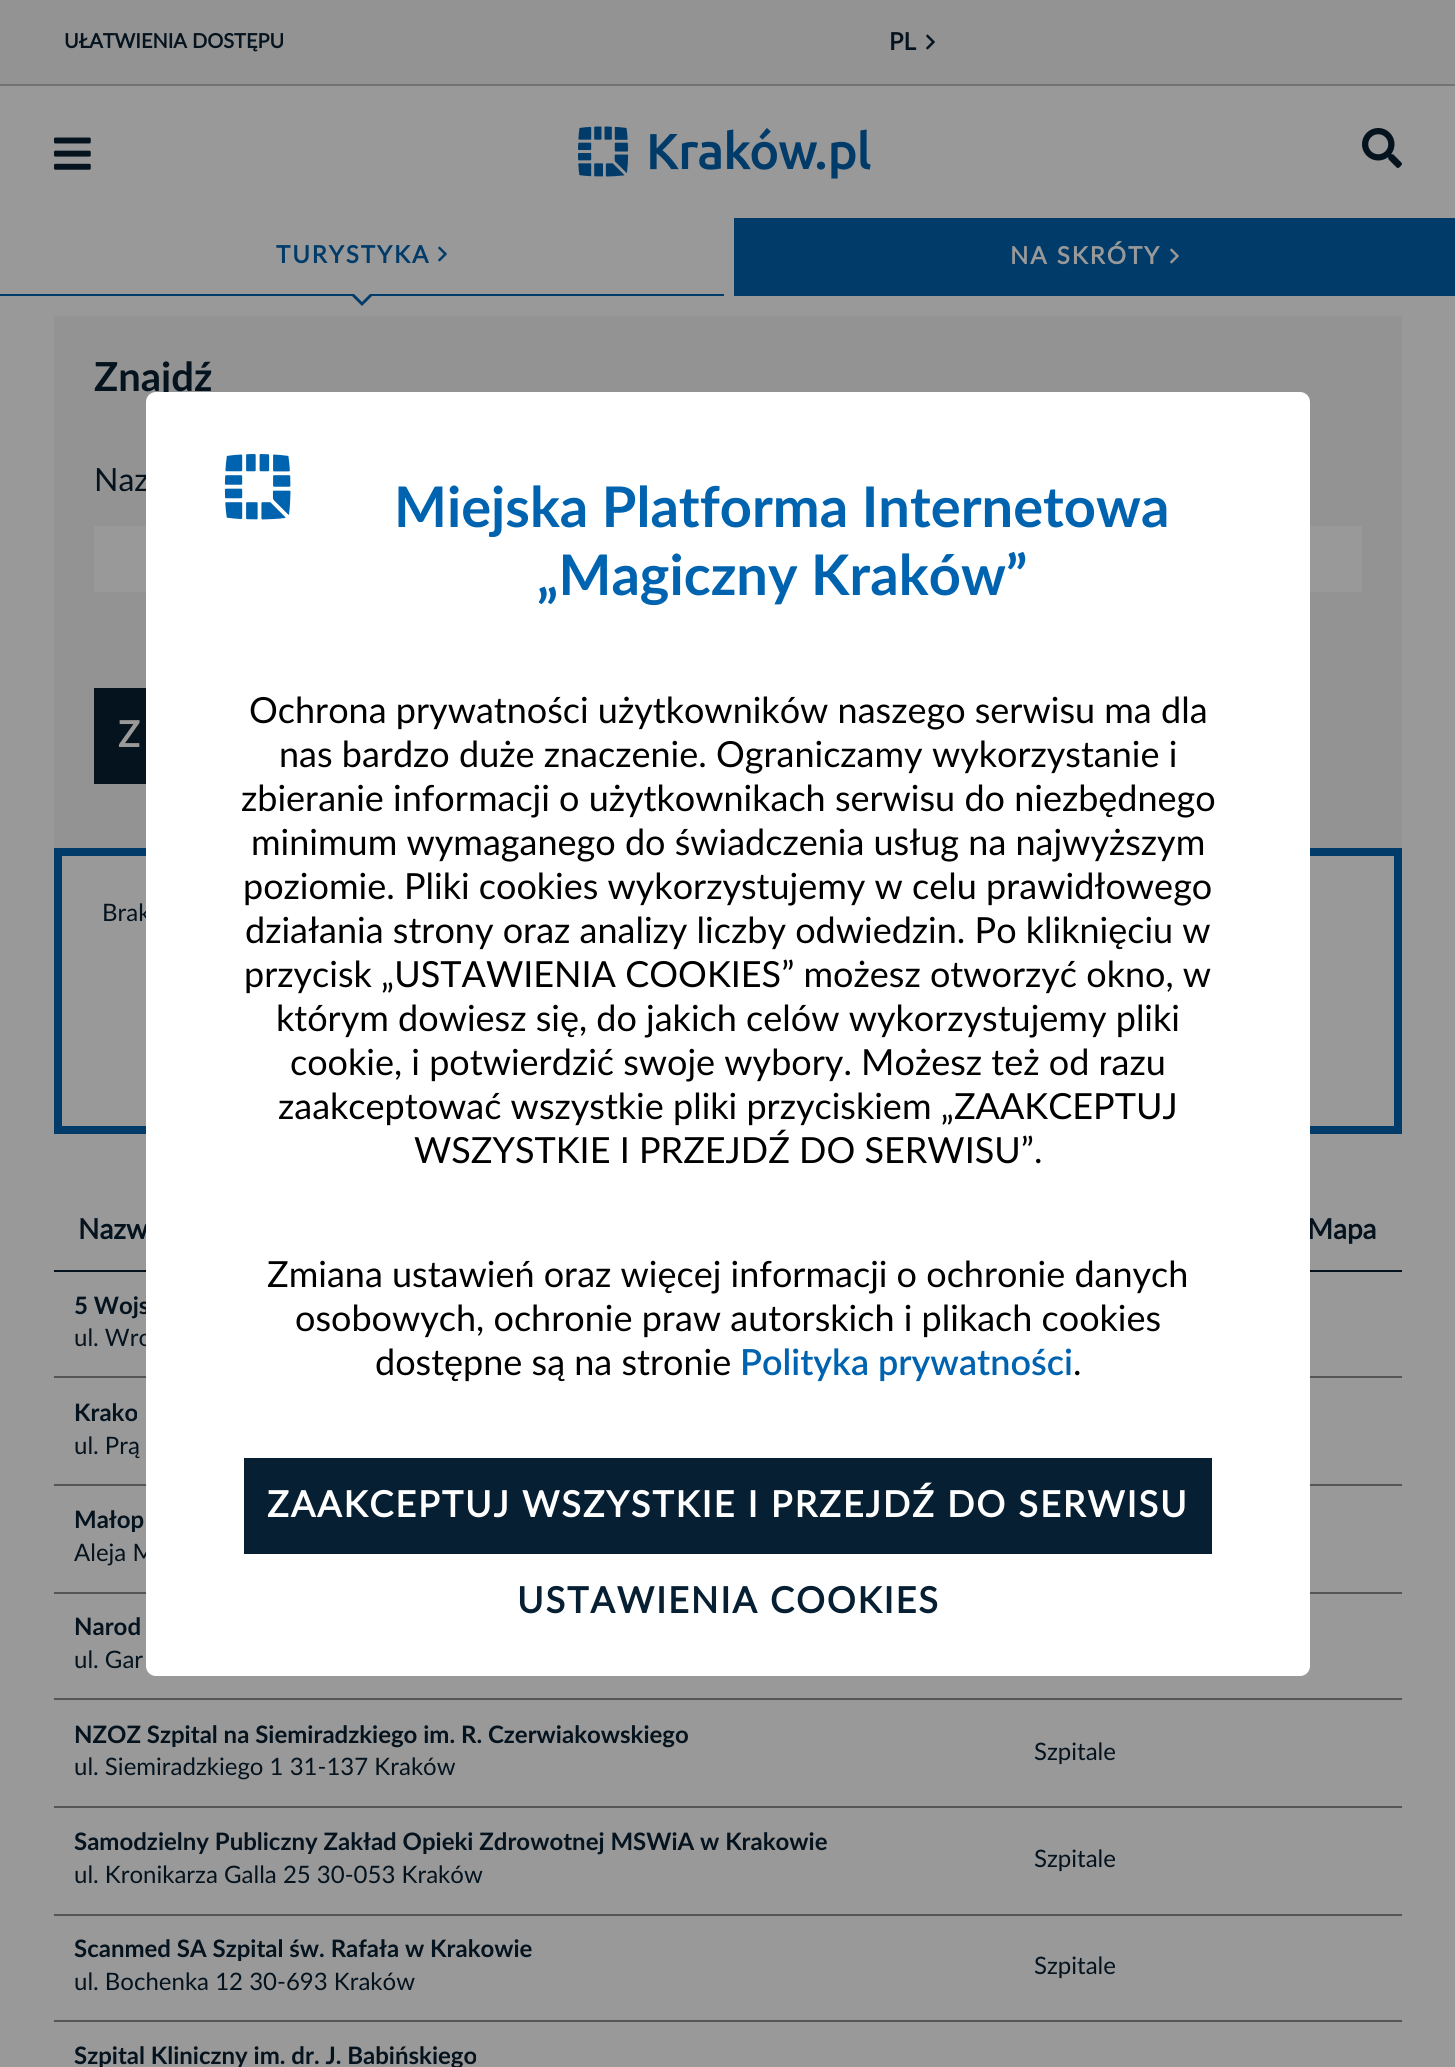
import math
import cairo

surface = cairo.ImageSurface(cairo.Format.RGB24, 1455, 2067)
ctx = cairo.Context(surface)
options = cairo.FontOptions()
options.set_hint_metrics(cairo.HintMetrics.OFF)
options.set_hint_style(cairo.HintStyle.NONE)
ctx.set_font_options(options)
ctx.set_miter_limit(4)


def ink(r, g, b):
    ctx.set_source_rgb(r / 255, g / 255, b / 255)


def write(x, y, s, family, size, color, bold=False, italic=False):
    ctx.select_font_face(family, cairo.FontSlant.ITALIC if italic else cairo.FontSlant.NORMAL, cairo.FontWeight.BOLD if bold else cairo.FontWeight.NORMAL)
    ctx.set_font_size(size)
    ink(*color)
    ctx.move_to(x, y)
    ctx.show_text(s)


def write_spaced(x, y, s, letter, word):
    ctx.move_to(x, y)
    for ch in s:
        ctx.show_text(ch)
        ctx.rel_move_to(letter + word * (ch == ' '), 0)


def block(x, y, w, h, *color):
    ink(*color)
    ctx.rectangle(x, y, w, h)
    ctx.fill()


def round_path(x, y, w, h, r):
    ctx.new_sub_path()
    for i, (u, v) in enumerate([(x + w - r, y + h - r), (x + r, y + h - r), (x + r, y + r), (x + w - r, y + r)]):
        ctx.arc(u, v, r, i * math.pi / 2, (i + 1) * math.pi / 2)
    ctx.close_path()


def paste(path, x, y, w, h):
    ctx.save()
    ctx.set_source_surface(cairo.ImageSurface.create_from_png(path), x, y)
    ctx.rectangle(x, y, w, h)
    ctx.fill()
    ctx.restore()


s1 = dict(family="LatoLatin", size=20, color=(4, 19, 30), bold=True)
s2 = dict(family="LatoLatin", size=24, color=(4, 19, 30), bold=True)
s3 = dict(family="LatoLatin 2", size=40, color=(4, 19, 30), bold=True)
s4 = dict(family="LatoLatin", size=32, color=(4, 19, 30))
s5 = dict(family="LatoLatin", size=24, color=(4, 19, 30))
s6 = dict(family="LatoLatin", size=28, color=(4, 19, 30), bold=True)
s7 = dict(family="LatoLatin 2", size=24, color=(4, 19, 30), bold=True)
s8 = dict(family="LatoLatin 2", size=56, color=(0, 99, 175), bold=True)
s9 = dict(family="LatoLatin", size=36, color=(0, 0, 0))
s10 = dict(family="LatoLatin SemiBold", size=36, color=(0, 99, 175))

ink(153, 153, 153)
ctx.paint()
block(0, 0, 1455, 84, 147, 147, 147)
block(0, 84, 1455, 2, 115, 115, 115)
write(64, 48, "UŁATWIENIA DOSTĘPU", **s1)
write(889, 50, "PL", **s2)
paste("pic1.png", 926, 34, 9, 16)
paste("pic2.png", 54, 137, 37, 33)
paste("pic3.png", 578, 126, 293, 53)
paste("pic4.png", 1362, 128, 40, 40)
block(0, 294, 724, 2, 0, 59, 105)
write_spaced(276, 263, "TURYSTYKA", 2, 0)
paste("pic5.png", 438, 246, 9, 16)
ctx.new_path()
ctx.move_to(350, 294)
ctx.line_to(374, 294)
ctx.line_to(362, 306)
ctx.close_path()
ctx.fill()
ink(153, 153, 153)
ctx.new_path()
ctx.move_to(350, 290)
ctx.line_to(374, 290)
ctx.line_to(362, 302)
ctx.close_path()
ctx.fill()
block(734, 218, 721, 78, 0, 59, 105)
ink(153, 153, 153)
write_spaced(1010, 264, "NA SKRÓTY", 2, 0)
paste("pic6.png", 1170, 248, 9, 16)
block(54, 316, 1348, 532, 147, 147, 147)
write(94, 391, "Znajdź", **s3)
write(94, 491, "Naz", **s4)
block(94, 526, 1268, 66, 153, 153, 153)
block(94, 688, 52, 96, 4, 19, 30)
ctx.select_font_face("LatoLatin", cairo.FontSlant.NORMAL, cairo.FontWeight.BOLD)
ctx.set_font_size(36)
ink(153, 153, 153)
write_spaced(118, 747, "Z", 2, 0)
ctx.rectangle(58, 852, 1340, 278)
ink(0, 59, 105)
ctx.set_line_width(8)
ctx.stroke()
write(102, 921, "Brak", **s5)
block(54, 1270, 1348, 2, 4, 19, 30)
write(78, 1239, "Nazw", **s6)
write(1307, 1239, "Mapa", **s6)
block(54, 1376, 1348, 2, 86, 86, 86)
write(74, 1314, "5 Wojs", **s7)
write(74, 1346, "ul. Wro", **s5)
block(54, 1484, 1348, 2, 86, 86, 86)
write(74, 1421, "Krako", **s7)
write(74, 1454, "ul. Prą", **s5)
block(54, 1592, 1348, 2, 86, 86, 86)
write(74, 1528, "Małop", **s7)
write(74, 1561, "Aleja M", **s5)
block(54, 1698, 1348, 2, 86, 86, 86)
write(74, 1635, "Narod", **s7)
write(74, 1668, "ul. Gar", **s5)
block(54, 1806, 1348, 2, 86, 86, 86)
write(74, 1743, "NZOZ Szpital na Siemiradzkiego im. R. Czerwiakowskiego", **s7)
write(74, 1775, "ul. Siemiradzkiego 1 31-137 Kraków", **s5)
write(1034, 1760, "Szpitale", **s5)
block(54, 1914, 1348, 2, 86, 86, 86)
write(74, 1850, "Samodzielny Publiczny Zakład Opieki Zdrowotnej MSWiA w Krakowie", **s7)
write(74, 1883, "ul. Kronikarza Galla 25 30-053 Kraków", **s5)
write(1034, 1867, "Szpitale", **s5)
block(54, 2020, 1348, 2, 86, 86, 86)
write(74, 1957, "Scanmed SA Szpital św. Rafała w Krakowie", **s7)
write(74, 1990, "ul. Bochenka 12 30-693 Kraków", **s5)
write(1034, 1974, "Szpitale", **s5)
write(74, 2064, "Szpital Kliniczny im. dr. J. Babińskiego", **s7)
ink(255, 255, 255)
round_path(146, 392, 1164, 1284, 10)
ctx.fill()
paste("pic7.png", 224, 454, 67, 66)
write(394, 527, "Miejska Platforma Internetowa", **s8)
write(537, 595, "„Magiczny Kraków”", **s8)
write(249, 723, "Ochrona prywatności użytkowników naszego serwisu ma dla", **s9)
write(279, 767, "nas bardzo duże znaczenie. Ograniczamy wykorzystanie i", **s9)
write(241, 811, "zbieranie informacji o użytkownikach serwisu do niezbędnego", **s9)
write(251, 855, "minimum wymaganego do świadczenia usług na najwyższym", **s9)
write(243, 899, "poziomie. Pliki cookies wykorzystujemy w celu prawidłowego", **s9)
write(245, 943, "działania strony oraz analizy liczby odwiedzin. Po kliknięciu w", **s9)
write(244, 987, "przycisk „USTAWIENIA COOKIES” możesz otworzyć okno, w", **s9)
write(276, 1031, "którym dowiesz się, do jakich celów wykorzystujemy pliki", **s9)
write(290, 1075, "cookie, i potwierdzić swoje wybory. Możesz też od razu", **s9)
write(278, 1119, "zaakceptować wszystkie pliki przyciskiem „ZAAKCEPTUJ", **s9)
write(414, 1163, "WSZYSTKIE I PRZEJDŹ DO SERWISU”.", **s9)
write(267, 1287, "Zmiana ustawień oraz więcej informacji o ochronie danych", **s9)
write(295, 1331, "osobowych, ochronie praw autorskich i plikach cookies", **s9)
write(375, 1375, "dostępne są na stronie", **s9)
write(740, 1375, "Polityka prywatności", **s10)
write(1073, 1375, ".", **s9)
block(244, 1458, 968, 96, 7, 31, 50)
ctx.select_font_face("LatoLatin", cairo.FontSlant.NORMAL, cairo.FontWeight.BOLD)
ink(255, 255, 255)
write_spaced(267, 1517, "ZAAKCEPTUJ WSZYSTKIE I PRZEJDŹ DO SERWISU", 2, 0)
ink(7, 31, 50)
write_spaced(517, 1613, "USTAWIENIA COOKIES", 2, 0)
surface.write_to_png("screenshot.png")
